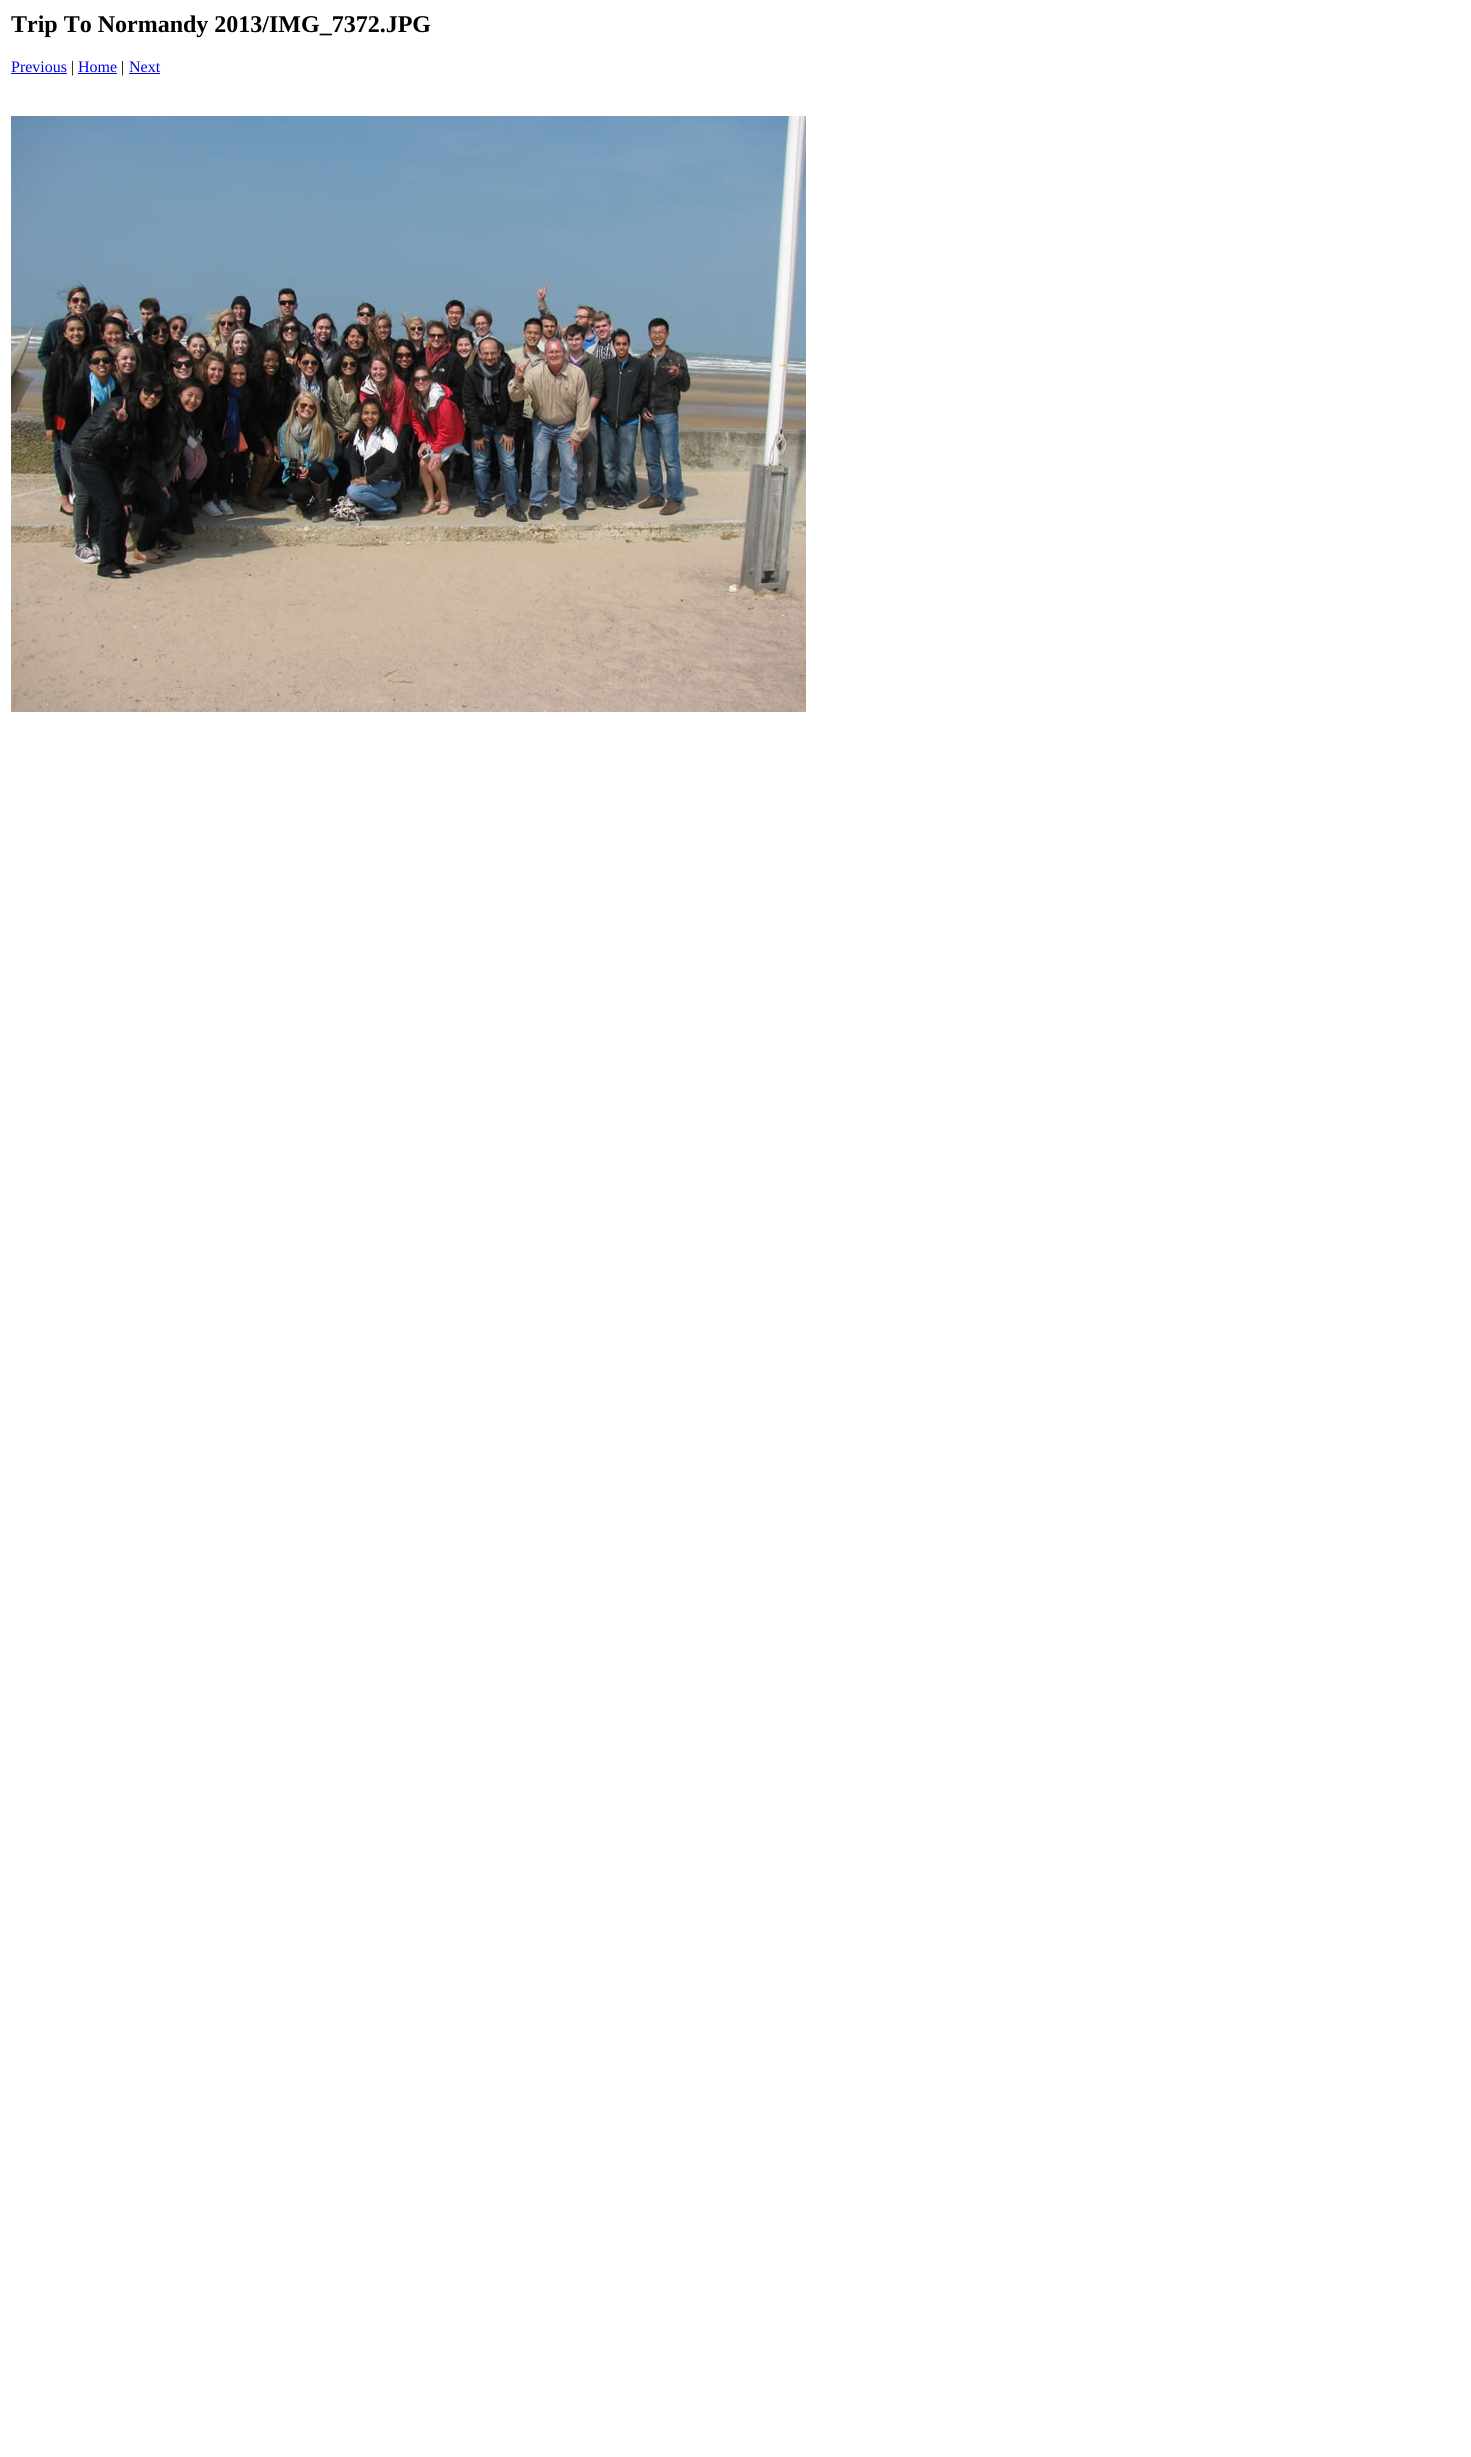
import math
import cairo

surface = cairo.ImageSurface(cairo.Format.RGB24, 1471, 2457)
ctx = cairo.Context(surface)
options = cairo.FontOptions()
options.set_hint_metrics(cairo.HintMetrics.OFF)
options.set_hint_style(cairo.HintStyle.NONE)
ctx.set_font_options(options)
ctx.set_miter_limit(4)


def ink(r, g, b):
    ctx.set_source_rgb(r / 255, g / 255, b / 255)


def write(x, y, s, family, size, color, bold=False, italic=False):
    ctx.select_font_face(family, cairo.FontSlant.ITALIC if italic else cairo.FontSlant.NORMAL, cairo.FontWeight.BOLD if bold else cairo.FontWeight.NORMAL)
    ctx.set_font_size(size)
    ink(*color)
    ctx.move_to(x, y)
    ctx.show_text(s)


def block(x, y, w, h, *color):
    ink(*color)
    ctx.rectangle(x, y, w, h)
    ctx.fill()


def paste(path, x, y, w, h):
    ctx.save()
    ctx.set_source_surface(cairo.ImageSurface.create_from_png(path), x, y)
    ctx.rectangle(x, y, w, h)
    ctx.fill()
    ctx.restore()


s1 = dict(family="Liberation Serif", size=24, color=(0, 0, 0), bold=True)
s2 = dict(family="Liberation Serif", size=16, color=(0, 0, 238))
s3 = dict(family="Liberation Serif", size=16, color=(0, 0, 0))

ink(255, 255, 255)
ctx.paint()
write(11, 32, "Trip To Normandy 2013/IMG_7372.JPG", **s1)
write(11, 72, "Previous", **s2)
block(11, 73, 56, 1, 0, 0, 238)
write(71, 72, "|", **s3)
write(78, 72, "Home", **s2)
block(78, 73, 39, 1, 0, 0, 238)
write(121, 72, "|", **s3)
write(129, 72, "Next", **s2)
block(129, 73, 31, 1, 0, 0, 238)
paste("pic1.png", 11, 116, 795, 596)
surface.write_to_png("screenshot.png")
